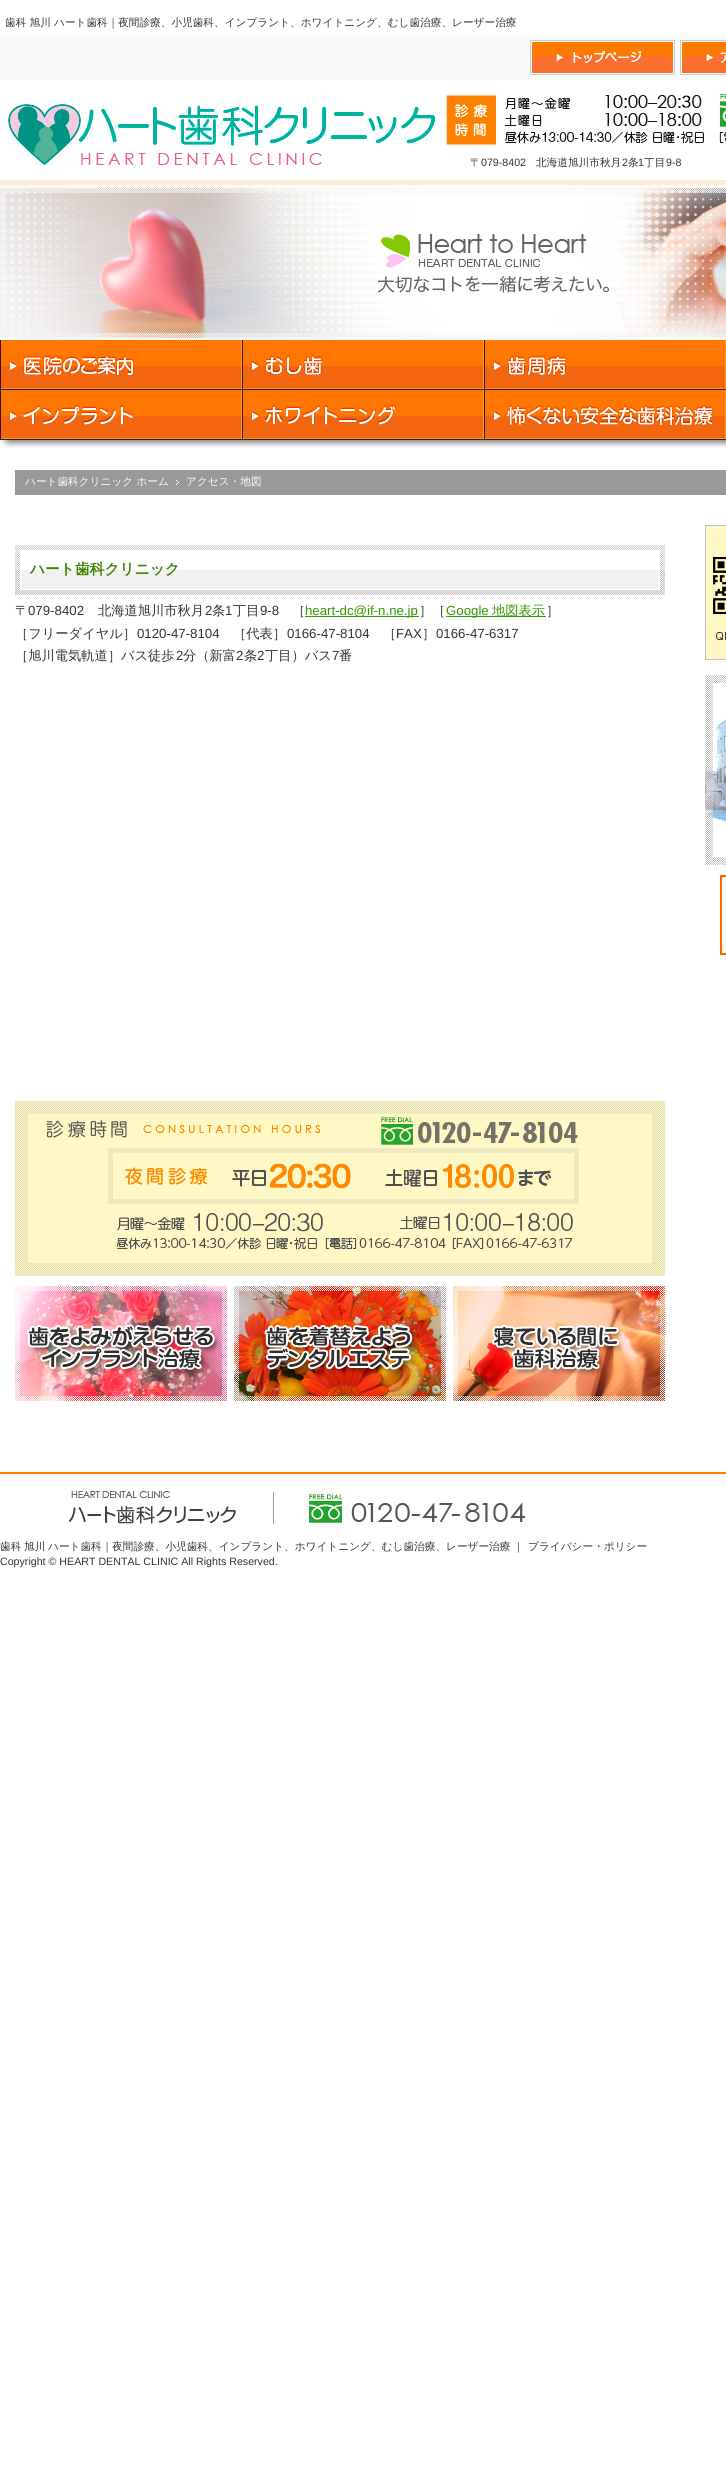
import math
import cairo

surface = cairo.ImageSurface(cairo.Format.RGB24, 726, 2487)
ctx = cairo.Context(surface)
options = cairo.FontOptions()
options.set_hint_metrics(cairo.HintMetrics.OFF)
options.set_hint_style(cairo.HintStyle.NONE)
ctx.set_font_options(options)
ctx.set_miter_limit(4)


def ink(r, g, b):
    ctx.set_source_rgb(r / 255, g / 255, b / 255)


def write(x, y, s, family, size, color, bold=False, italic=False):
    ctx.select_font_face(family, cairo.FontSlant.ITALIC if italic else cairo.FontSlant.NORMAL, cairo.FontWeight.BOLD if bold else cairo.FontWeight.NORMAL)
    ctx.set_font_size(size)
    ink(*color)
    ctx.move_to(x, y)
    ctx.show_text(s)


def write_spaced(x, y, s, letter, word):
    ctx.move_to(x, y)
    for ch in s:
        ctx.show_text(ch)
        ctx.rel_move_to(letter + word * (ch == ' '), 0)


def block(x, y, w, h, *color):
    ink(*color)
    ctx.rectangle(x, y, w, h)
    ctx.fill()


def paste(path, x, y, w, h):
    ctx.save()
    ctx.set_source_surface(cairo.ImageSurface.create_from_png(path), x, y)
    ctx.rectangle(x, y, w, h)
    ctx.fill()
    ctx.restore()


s1 = dict(family="WenQuanYi Zen Hei Medium", size=10.65, color=(51, 51, 51))
s2 = dict(family="Liberation Sans", size=10.65, color=(51, 51, 51))
s3 = dict(family="WenQuanYi Zen Hei Medium", size=10.65, color=(255, 255, 255))
s4 = dict(family="WenQuanYi Zen Hei", size=14.75, color=(66, 129, 2), bold=True)
s5 = dict(family="WenQuanYi Zen Hei Medium", size=13.25, color=(51, 51, 51))
s6 = dict(family="Liberation Sans", size=13.25, color=(51, 51, 51))
s7 = dict(family="Liberation Sans", size=13.25, color=(51, 153, 0))
s8 = dict(family="WenQuanYi Zen Hei Medium", size=13.25, color=(51, 153, 0))

ink(255, 255, 255)
ctx.paint()
paste("pic1.png", 0, 35, 726, 150)
write(5, 26, "歯科 旭川 ハート歯科｜夜間診療、小児歯科、インプラント、ホワイトニング、むし歯治療、レーザー治療", **s1)
paste("pic2.png", 530, 40, 145, 35)
paste("pic3.png", 680, 40, 46, 35)
paste("pic4.png", 8, 104, 427, 64)
paste("pic5.png", 446, 89, 280, 62)
write(470, 166, "〒", **s1)
write(481, 166, "079-8402", **s2)
write(536, 166, "北海道旭川市秋月", **s1)
write(622, 166, "2", **s2)
write(628, 166, "条", **s1)
write(638, 166, "1", **s2)
write(644, 166, "丁目", **s1)
write(666, 166, "9-8", **s2)
paste("pic6.png", 0, 188, 726, 150)
paste("pic7.png", 0, 340, 1, 50)
paste("pic8.png", 1, 340, 242, 50)
paste("pic9.png", 243, 340, 242, 50)
paste("pic10.png", 485, 340, 241, 50)
paste("pic11.png", 0, 390, 726, 58)
paste("pic12.png", 1, 390, 242, 50)
paste("pic13.png", 243, 390, 242, 50)
paste("pic14.png", 485, 390, 241, 50)
block(15, 470, 711, 25, 153, 153, 153)
write(25, 485, "ハート歯科クリニック ホーム", **s3)
paste("pic15.png", 176, 480, 3, 5)
write(186, 485, "アクセス・地図", **s3)
paste("pic16.png", 15, 545, 650, 50)
write(30, 574, "ハート歯科クリニック", **s4)
write(15, 615, "〒", **s5)
write(28, 615, "079-8402", **s6)
write(98, 615, "北海道旭川市秋月", **s5)
write(205, 615, "2", **s6)
write(212, 615, "条", **s5)
write(225, 615, "1", **s6)
write(233, 615, "丁目", **s5)
write(260, 615, "9-8", **s6)
write(292, 615, "［", **s5)
block(305, 616, 114, 1, 51, 153, 0)
write(305, 615, "heart-dc@if-n.ne.jp", **s7)
write(419, 615, "］［", **s5)
block(446, 616, 100, 1, 51, 153, 0)
write(446, 615, "Google", **s7)
write(492, 615, "地図表示", **s8)
write(546, 615, "］", **s5)
write(15, 638, "［フリーダイヤル］", **s5)
write(137, 638, "0120-47-8104", **s6)
write(233, 638, "［代表］", **s5)
write(287, 638, "0166-47-8104", **s6)
write(383, 638, "［", **s5)
write(396, 638, "FAX", **s6)
write(422, 638, "］", **s5)
write(436, 638, "0166-47-6317", **s6)
write(15, 660, "［旭川電気軌道］バス徒歩", **s5)
write(176, 660, "2", **s6)
write(183, 660, "分（新富", **s5)
write(236, 660, "2", **s6)
write(244, 660, "条", **s5)
write(257, 660, "2", **s6)
write(265, 660, "丁目）バス", **s5)
write(332, 660, "7", **s6)
write(339, 660, "番", **s5)
paste("pic17.png", 15, 1101, 650, 175)
paste("pic18.png", 15, 1286, 212, 115)
paste("pic19.png", 234, 1286, 212, 115)
paste("pic20.png", 453, 1286, 212, 115)
paste("pic21.png", 705, 525, 21, 135)
paste("pic22.png", 705, 675, 21, 190)
paste("pic23.png", 720, 875, 6, 80)
block(0, 1472, 726, 2, 255, 128, 0)
paste("pic24.png", 69, 1491, 456, 33)
ctx.set_font_size(10.65)
ink(51, 51, 51)
write_spaced(0, 1550, "歯科 旭川 ハート歯科｜夜間診療、小児歯科、インプラント、ホワイトニング、むし歯治療、レーザー治療 ｜", 0, -0.5)
write(528, 1550, "プライバシー・ポリシー", **s1)
write(0, 1565, "Copyright © HEART DENTAL CLINIC All Rights Reserved.", **s2)
surface.write_to_png("screenshot.png")
